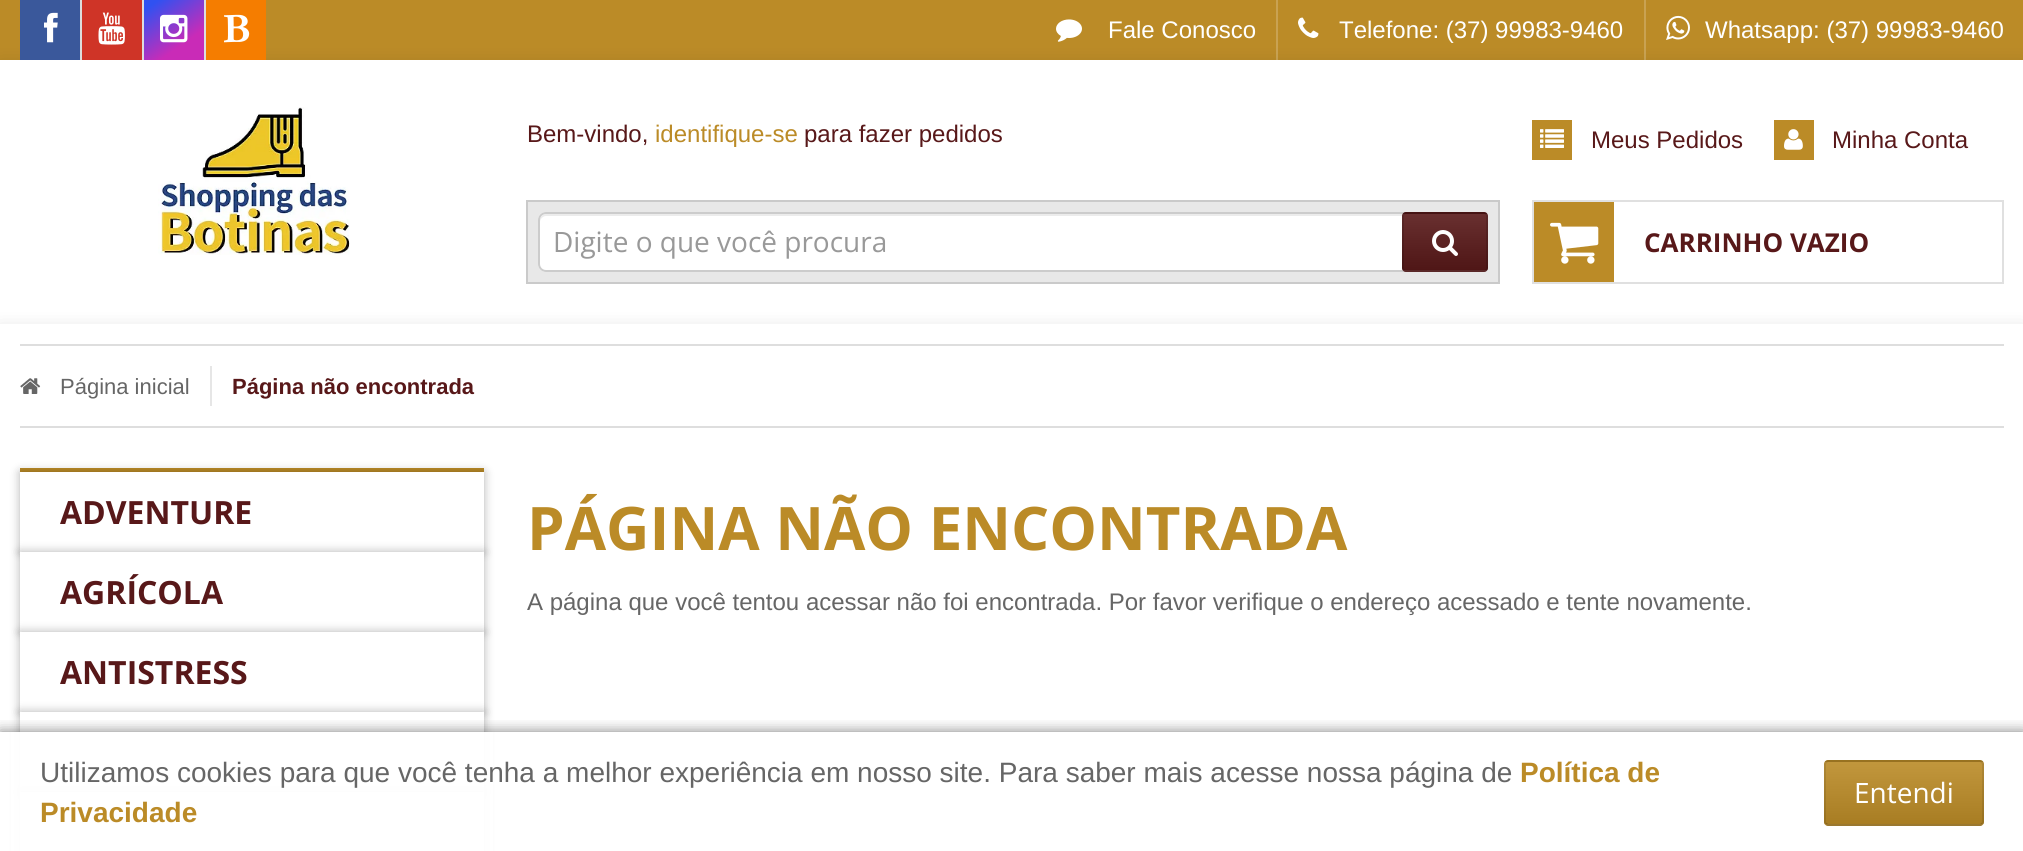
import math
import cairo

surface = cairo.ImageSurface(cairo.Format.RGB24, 2023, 851)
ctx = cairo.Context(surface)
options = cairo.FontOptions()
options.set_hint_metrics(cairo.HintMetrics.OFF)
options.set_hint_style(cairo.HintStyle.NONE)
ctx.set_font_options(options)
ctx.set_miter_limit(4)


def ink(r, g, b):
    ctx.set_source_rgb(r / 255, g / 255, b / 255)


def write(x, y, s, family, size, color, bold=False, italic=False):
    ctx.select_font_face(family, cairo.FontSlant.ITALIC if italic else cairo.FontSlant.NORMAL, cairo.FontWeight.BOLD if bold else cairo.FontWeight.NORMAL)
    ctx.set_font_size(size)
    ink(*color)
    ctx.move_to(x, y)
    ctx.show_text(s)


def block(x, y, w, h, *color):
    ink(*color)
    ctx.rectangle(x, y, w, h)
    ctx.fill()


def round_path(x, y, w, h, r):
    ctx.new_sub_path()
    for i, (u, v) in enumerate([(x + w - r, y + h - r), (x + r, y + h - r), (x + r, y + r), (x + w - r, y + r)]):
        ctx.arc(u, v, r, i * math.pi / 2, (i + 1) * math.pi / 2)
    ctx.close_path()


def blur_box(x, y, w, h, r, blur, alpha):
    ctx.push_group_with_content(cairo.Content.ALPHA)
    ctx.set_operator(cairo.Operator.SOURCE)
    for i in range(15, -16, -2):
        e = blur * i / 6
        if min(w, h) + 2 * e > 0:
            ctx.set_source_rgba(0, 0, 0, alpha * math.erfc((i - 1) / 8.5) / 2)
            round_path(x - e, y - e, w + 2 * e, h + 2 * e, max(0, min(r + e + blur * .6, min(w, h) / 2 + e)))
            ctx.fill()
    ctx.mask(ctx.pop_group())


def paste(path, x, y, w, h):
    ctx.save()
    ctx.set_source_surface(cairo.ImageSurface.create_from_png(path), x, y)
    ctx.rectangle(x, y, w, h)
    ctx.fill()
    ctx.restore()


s1 = dict(family="Liberation Sans", size=24, color=(255, 255, 255))
s2 = dict(family="Liberation Sans", size=24, color=(88, 24, 25))
s3 = dict(family="Liberation Sans", size=24, color=(187, 139, 39))
s4 = dict(family="Open Sans", size=28, color=(153, 153, 153))
s5 = dict(family="Open Sans", size=26, color=(88, 24, 25), bold=True)
s6 = dict(family="Liberation Sans", size=22, color=(102, 102, 102))
s7 = dict(family="Liberation Sans", size=22, color=(88, 24, 25), bold=True)
s8 = dict(family="Open Sans", size=32, color=(88, 24, 25), bold=True)
s9 = dict(family="Open Sans", size=60, color=(187, 139, 39), bold=True)
s10 = dict(family="Liberation Sans", size=24, color=(102, 102, 102))
s11 = dict(family="Liberation Sans", size=28, color=(102, 102, 102))
s12 = dict(family="Liberation Sans", size=28, color=(187, 139, 39), bold=True)
s13 = dict(family="Open Sans", size=28, color=(255, 255, 255))

ink(187, 139, 39)
ctx.paint()
ink(0, 0, 0)
blur_box(0, 66, 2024, 264, 0, 10, 0.15)
block(20, 0, 60, 60, 58, 88, 155)
paste("pic1.png", 44, 12, 14, 31)
block(80, 0, 2, 60, 221, 221, 221)
block(82, 0, 60, 60, 207, 52, 39)
paste("pic2.png", 98, 12, 27, 33)
block(142, 0, 2, 60, 221, 221, 221)
gradient = cairo.LinearGradient(150, -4.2, 198, 64)
gradient.add_color_stop_rgba(0.1, 0.188, 0.318, 0.945, 1)
gradient.add_color_stop_rgba(0.7, 0.788, 0.169, 0.718, 1)
ctx.set_source(gradient)
ctx.rectangle(144, 0, 60, 60)
ctx.fill()
paste("pic3.png", 160, 14, 28, 29)
block(204, 0, 2, 60, 221, 221, 221)
block(206, 0, 60, 60, 245, 125, 0)
paste("pic4.png", 224, 14, 26, 29)
paste("pic5.png", 1056, 19, 26, 23)
write(1108, 38, "Fale Conosco", **s1)
ctx.set_source_rgba(1, 1, 1, 0.2)
ctx.rectangle(1276, 0, 2, 60)
ctx.fill()
paste("pic6.png", 1298, 17, 21, 21)
write(1339, 38, "Telefone: (37) 99983-9460", **s1)
ctx.set_source_rgba(1, 1, 1, 0.2)
ctx.rectangle(1644, 0, 2, 60)
ctx.fill()
paste("pic7.png", 1666, 15, 24, 25)
write(1705, 38, "Whatsapp: (37) 99983-9460", **s1)
block(0, 60, 2023, 264, 255, 255, 255)
paste("pic8.png", 158, 107, 192, 148)
write(527, 142, "Bem-vindo,", **s2)
write(655, 142, "identifique-se", **s3)
write(804, 142, "para fazer pedidos", **s2)
block(1532, 120, 40, 40, 187, 139, 39)
paste("pic9.png", 1540, 129, 24, 19)
write(1591, 148, "Meus Pedidos", **s2)
block(1774, 120, 40, 40, 187, 139, 39)
paste("pic10.png", 1784, 129, 19, 21)
write(1832, 148, "Minha Conta", **s2)
ink(232, 232, 232)
ctx.rectangle(527, 201, 972, 82)
ctx.fill_preserve()
ink(202, 202, 202)
ctx.stroke()
ink(255, 255, 255)
round_path(538, 212, 922, 60, 8)
ctx.fill()
ink(236, 236, 236)
ctx.new_path()
ctx.move_to(546, 216)
ctx.line_to(1452, 216)
ctx.curve_to(1455, 216, 1458, 219, 1458, 222)
ctx.line_to(1458, 220)
ctx.curve_to(1458, 217, 1455, 214, 1452, 214)
ctx.line_to(546, 214)
ctx.curve_to(543, 214, 540, 217, 540, 220)
ctx.line_to(540, 222)
ctx.curve_to(540, 219, 543, 216, 546, 216)
ctx.close_path()
ctx.fill()
round_path(539, 213, 920, 58, 7)
ink(204, 204, 204)
ctx.stroke()
write(553, 252, "Digite o que você procura", **s4)
ink(88, 24, 25)
round_path(1402, 212, 86, 60, 4)
ctx.fill()
ctx.save()
round_path(1402, 212, 86, 60, 4)
ctx.clip()
gradient = cairo.LinearGradient(1445, 158, 1445, 214)
gradient.add_color_stop_rgba(0, 1, 1, 1, 0.1)
gradient.add_color_stop_rgba(1, 0, 0, 0, 0.1)
ctx.set_source(gradient)
ctx.rectangle(1402, 212, 86, 2)
ctx.fill()
ctx.restore()
gradient = cairo.LinearGradient(1445, 214, 1445, 270)
gradient.add_color_stop_rgba(0, 1, 1, 1, 0.1)
gradient.add_color_stop_rgba(1, 0, 0, 0, 0.1)
ctx.set_source(gradient)
ctx.rectangle(1402, 214, 86, 56)
ctx.fill()
ctx.save()
round_path(1402, 212, 86, 60, 4)
ctx.clip()
gradient = cairo.LinearGradient(1445, 270, 1445, 326)
gradient.add_color_stop_rgba(0, 1, 1, 1, 0.1)
gradient.add_color_stop_rgba(1, 0, 0, 0, 0.1)
ctx.set_source(gradient)
ctx.rectangle(1402, 270, 86, 2)
ctx.fill()
ctx.restore()
round_path(1403, 213, 84, 58, 3)
ctx.set_source_rgba(0, 0, 0, 0.13)
ctx.stroke()
paste("pic11.png", 1432, 230, 26, 26)
ctx.rectangle(1533, 201, 470, 82)
ink(224, 224, 224)
ctx.stroke()
block(1534, 202, 80, 80, 187, 139, 39)
paste("pic12.png", 1550, 222, 49, 42)
write(1644, 252, "CARRINHO VAZIO", **s5)
ink(0, 0, 0)
blur_box(0, 330, 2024, 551, 0, 10, 0.15)
block(0, 324, 2023, 527, 255, 255, 255)
block(20, 344, 1984, 2, 222, 222, 222)
block(20, 426, 1984, 2, 222, 222, 222)
paste("pic13.png", 20, 378, 21, 16)
write(60, 394, "Página inicial", **s6)
block(210, 366, 2, 40, 230, 230, 230)
write(232, 394, "Página não encontrada", **s7)
block(20, 468, 464, 4, 187, 139, 39)
ctx.save()
ctx.set_fill_rule(cairo.FillRule.EVEN_ODD)
ctx.new_path()
ctx.move_to(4, 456)
ctx.line_to(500, 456)
ctx.line_to(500, 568)
ctx.line_to(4, 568)
ctx.close_path()
ctx.move_to(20, 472)
ctx.line_to(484, 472)
ctx.line_to(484, 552)
ctx.line_to(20, 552)
ctx.close_path()
ctx.clip()
ink(0, 0, 0)
blur_box(20, 472, 464, 80, 0, 5, 0.3)
ctx.restore()
write(60, 524, "ADVENTURE", **s8)
ink(0, 0, 0)
blur_box(20, 552, 464, 80, 0, 5, 0.3)
block(20, 552, 464, 80, 255, 255, 255)
write(60, 604, "AGRÍCOLA", **s8)
ink(0, 0, 0)
blur_box(20, 632, 464, 80, 0, 5, 0.3)
block(20, 632, 464, 80, 255, 255, 255)
write(60, 684, "ANTISTRESS", **s8)
ink(0, 0, 0)
blur_box(20, 712, 464, 80, 0, 5, 0.3)
block(20, 712, 464, 80, 255, 255, 255)
ink(0, 0, 0)
blur_box(20, 792, 464, 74, 0, 5, 0.3)
block(20, 792, 464, 59, 255, 255, 255)
write(527, 550, "PÁGINA NÃO ENCONTRADA", **s9)
write(527, 610, "A página que você tentou acessar não foi encontrada. Por favor verifique o endereço acessado e tente novamente.", **s10)
ctx.save()
ctx.rectangle(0, 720, 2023, 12)
ctx.clip()
ink(0, 0, 0)
blur_box(0, 732, 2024, 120, 0, 7, 0.5)
ctx.restore()
ctx.set_source_rgba(1, 1, 1, 0.95)
ctx.rectangle(11, 732, 482, 119)
ctx.fill()
write(40, 782, "Utilizamos cookies para que você tenha a melhor experiência em nosso site. Para saber mais acesse nossa página de", **s11)
write(1520, 782, "Política de", **s12)
write(40, 822, "Privacidade", **s12)
round_path(1824, 760, 160, 66, 4)
ctx.fill()
ctx.save()
round_path(1824, 760, 160, 66, 4)
ctx.clip()
gradient = cairo.LinearGradient(1904, 700, 1904, 762)
gradient.add_color_stop_rgba(0, 1, 1, 1, 0.1)
gradient.add_color_stop_rgba(1, 0, 0, 0, 0.1)
ctx.set_source(gradient)
ctx.rectangle(1824, 760, 160, 2)
ctx.fill()
ctx.restore()
gradient = cairo.LinearGradient(1904, 762, 1904, 824)
gradient.add_color_stop_rgba(0, 1, 1, 1, 0.1)
gradient.add_color_stop_rgba(1, 0, 0, 0, 0.1)
ctx.set_source(gradient)
ctx.rectangle(1824, 762, 160, 62)
ctx.fill()
ctx.save()
round_path(1824, 760, 160, 66, 4)
ctx.clip()
gradient = cairo.LinearGradient(1904, 824, 1904, 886)
gradient.add_color_stop_rgba(0, 1, 1, 1, 0.1)
gradient.add_color_stop_rgba(1, 0, 0, 0, 0.1)
ctx.set_source(gradient)
ctx.rectangle(1824, 824, 160, 2)
ctx.fill()
ctx.restore()
ctx.new_path()
ctx.move_to(1982, 824)
ctx.line_to(1980.5, 825)
ctx.line_to(1853.5, 825)
ctx.line_to(1828, 825)
ctx.line_to(1826, 824)
ctx.set_source_rgba(0, 0, 0, 0.2)
ctx.stroke()
ctx.new_path()
ctx.move_to(1826, 824)
ctx.line_to(1825, 822)
ctx.line_to(1825, 764)
ctx.line_to(1826, 762)
ctx.line_to(1828, 761)
ctx.line_to(1980, 761)
ctx.line_to(1982, 762)
ctx.line_to(1983, 764)
ctx.line_to(1983, 822)
ctx.line_to(1982, 824)
ctx.set_source_rgba(0, 0, 0, 0.1)
ctx.stroke()
write(1854, 803, "Entendi", **s13)
surface.write_to_png("screenshot.png")
